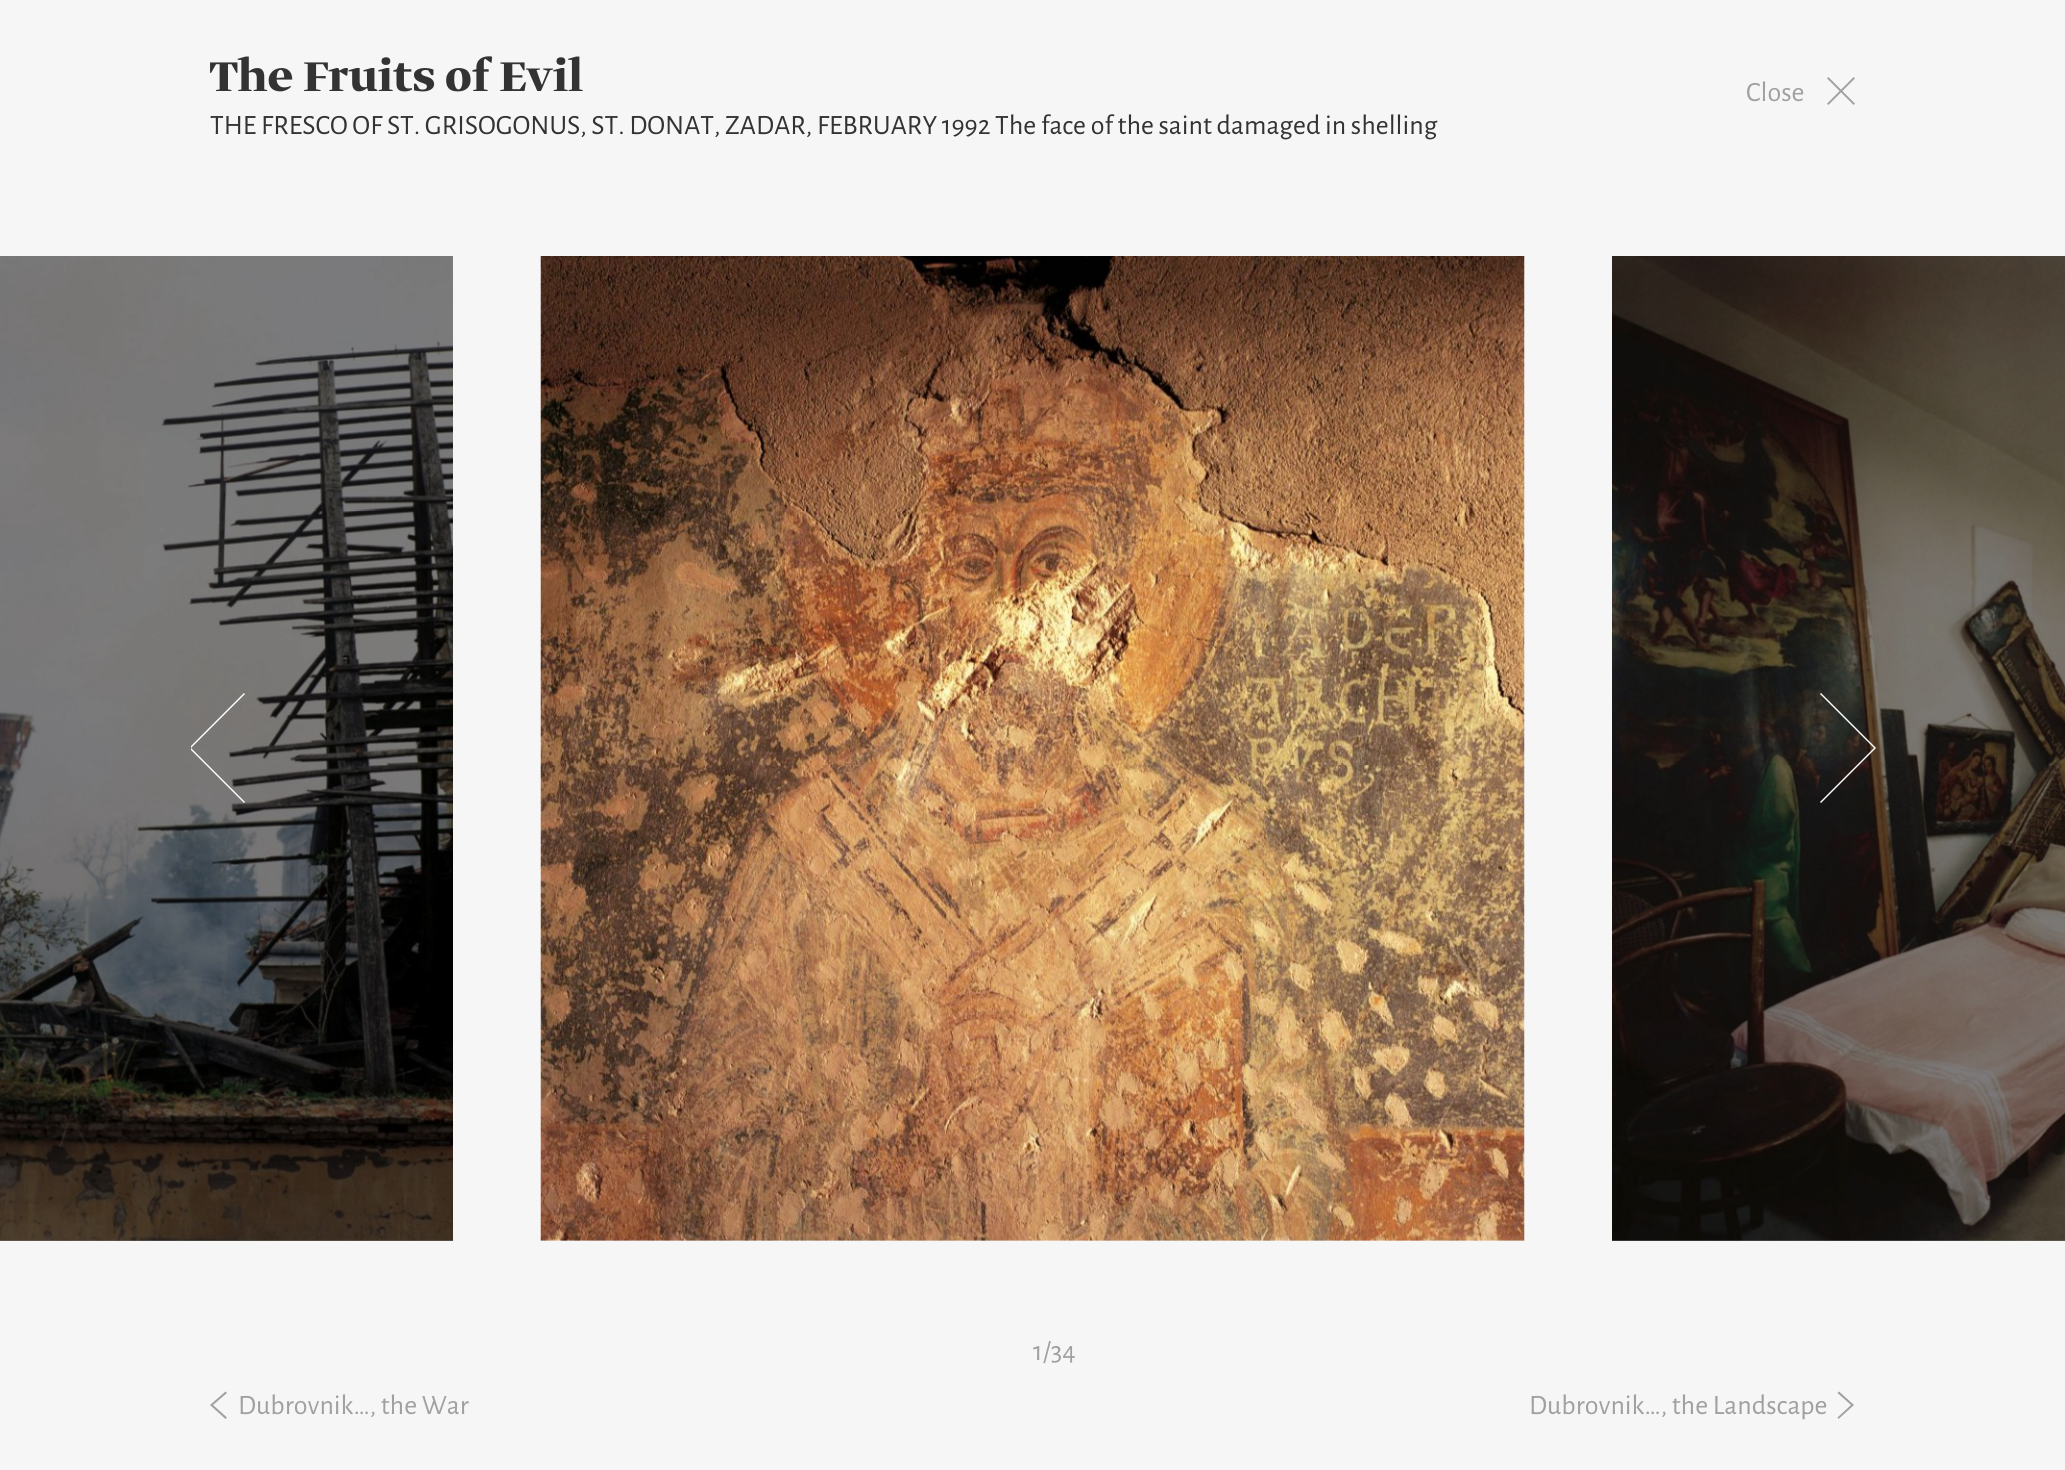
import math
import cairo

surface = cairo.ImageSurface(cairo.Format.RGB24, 2065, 1470)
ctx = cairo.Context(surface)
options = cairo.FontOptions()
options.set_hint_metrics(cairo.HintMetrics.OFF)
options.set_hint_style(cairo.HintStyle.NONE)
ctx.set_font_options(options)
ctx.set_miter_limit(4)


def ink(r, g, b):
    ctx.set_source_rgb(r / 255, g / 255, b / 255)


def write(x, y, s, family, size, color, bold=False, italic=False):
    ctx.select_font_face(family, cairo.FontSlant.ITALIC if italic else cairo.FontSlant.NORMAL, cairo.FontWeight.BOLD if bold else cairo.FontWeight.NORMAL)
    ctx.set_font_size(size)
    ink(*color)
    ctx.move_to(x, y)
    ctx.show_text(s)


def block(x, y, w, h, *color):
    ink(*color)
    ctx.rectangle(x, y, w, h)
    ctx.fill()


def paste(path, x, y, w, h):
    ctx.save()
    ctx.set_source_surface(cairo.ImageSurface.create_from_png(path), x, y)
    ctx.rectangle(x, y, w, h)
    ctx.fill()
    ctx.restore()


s1 = dict(family="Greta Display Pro", size=49, color=(51, 51, 51), bold=True)
s2 = dict(family="Alegreya Sans", size=28, color=(160, 160, 160))
s3 = dict(family="Alegreya Sans", size=28, color=(51, 51, 51))

ink(246, 246, 246)
ctx.paint()
block(1612, 1240, 453, 1, 123, 123, 123)
block(0, 1240, 453, 1, 123, 123, 123)
write(210, 91, "The Fruits of Evil", **s1)
write(1746, 101, "Close", **s2)
paste("pic1.png", 1827, 77, 28, 28)
write(210, 134, "THE FRESCO OF ST. GRISOGONUS, ST. DONAT, ZADAR, FEBRUARY 1992 The face of the saint damaged in shelling", **s3)
paste("pic2.png", 0, 256, 453, 985)
paste("pic3.png", 540, 256, 985, 985)
paste("pic4.png", 1612, 256, 453, 985)
ctx.save()
ctx.rectangle(191, 693, 110, 110)
ctx.clip()
ink(255, 255, 255)
ctx.new_path()
ctx.move_to(244, 693)
ctx.line_to(245, 694)
ctx.line_to(191, 748)
ctx.line_to(245, 802)
ctx.line_to(244, 803)
ctx.line_to(189, 748)
ctx.close_path()
ctx.fill()
ctx.restore()
ink(255, 255, 255)
ctx.new_path()
ctx.move_to(1821, 803)
ctx.line_to(1820, 802)
ctx.line_to(1874, 748)
ctx.line_to(1820, 694)
ctx.line_to(1821, 693)
ctx.line_to(1876, 748)
ctx.close_path()
ctx.fill()
write(1033, 1360, "1/34", **s2)
ctx.new_path()
ctx.move_to(225.5, 1419)
ctx.line_to(210, 1405)
ctx.line_to(225.5, 1391.5)
ctx.line_to(227, 1393)
ctx.line_to(213, 1405)
ctx.line_to(227, 1417.5)
ctx.close_path()
ctx.fill()
write(238, 1414, "Dubrovnik…, the War", **s2)
write(1529, 1414, "Dubrovnik…, the Landscape", **s2)
ctx.new_path()
ctx.move_to(1839, 1391.5)
ctx.line_to(1854, 1405)
ctx.line_to(1838.5, 1419)
ctx.line_to(1837.5, 1417.5)
ctx.line_to(1851, 1405)
ctx.line_to(1837.5, 1393)
ctx.close_path()
ctx.fill()
surface.write_to_png("screenshot.png")
